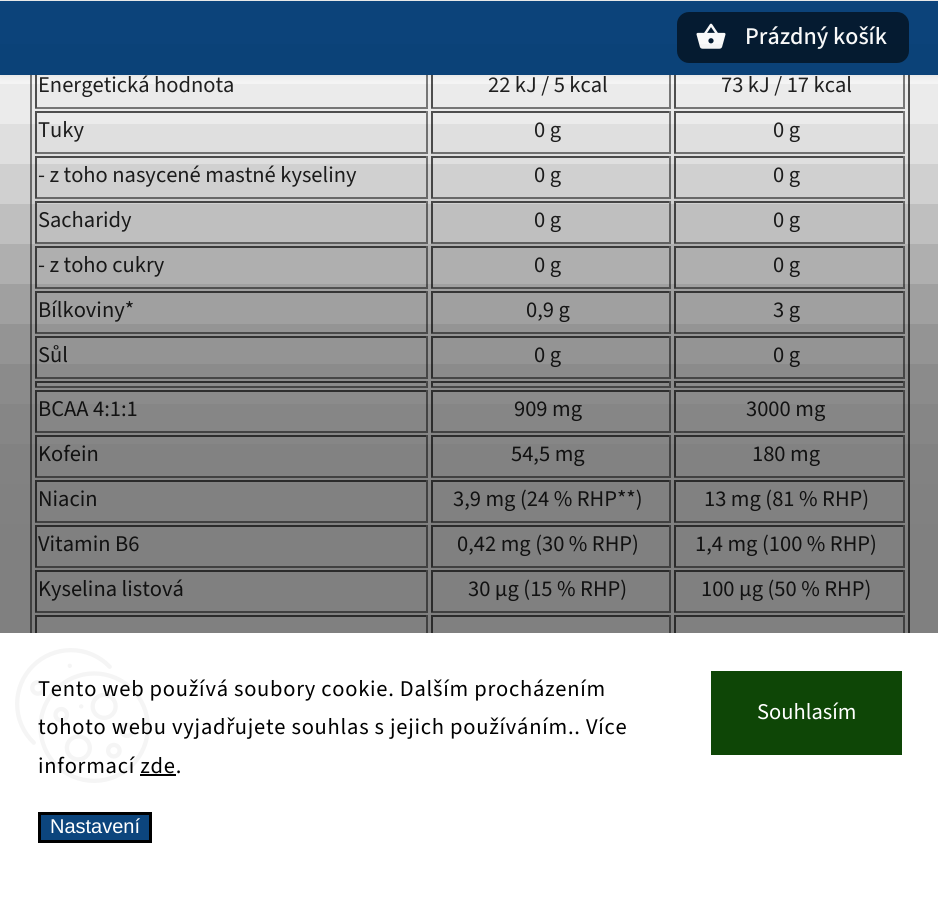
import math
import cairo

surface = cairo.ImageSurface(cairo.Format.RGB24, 938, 906)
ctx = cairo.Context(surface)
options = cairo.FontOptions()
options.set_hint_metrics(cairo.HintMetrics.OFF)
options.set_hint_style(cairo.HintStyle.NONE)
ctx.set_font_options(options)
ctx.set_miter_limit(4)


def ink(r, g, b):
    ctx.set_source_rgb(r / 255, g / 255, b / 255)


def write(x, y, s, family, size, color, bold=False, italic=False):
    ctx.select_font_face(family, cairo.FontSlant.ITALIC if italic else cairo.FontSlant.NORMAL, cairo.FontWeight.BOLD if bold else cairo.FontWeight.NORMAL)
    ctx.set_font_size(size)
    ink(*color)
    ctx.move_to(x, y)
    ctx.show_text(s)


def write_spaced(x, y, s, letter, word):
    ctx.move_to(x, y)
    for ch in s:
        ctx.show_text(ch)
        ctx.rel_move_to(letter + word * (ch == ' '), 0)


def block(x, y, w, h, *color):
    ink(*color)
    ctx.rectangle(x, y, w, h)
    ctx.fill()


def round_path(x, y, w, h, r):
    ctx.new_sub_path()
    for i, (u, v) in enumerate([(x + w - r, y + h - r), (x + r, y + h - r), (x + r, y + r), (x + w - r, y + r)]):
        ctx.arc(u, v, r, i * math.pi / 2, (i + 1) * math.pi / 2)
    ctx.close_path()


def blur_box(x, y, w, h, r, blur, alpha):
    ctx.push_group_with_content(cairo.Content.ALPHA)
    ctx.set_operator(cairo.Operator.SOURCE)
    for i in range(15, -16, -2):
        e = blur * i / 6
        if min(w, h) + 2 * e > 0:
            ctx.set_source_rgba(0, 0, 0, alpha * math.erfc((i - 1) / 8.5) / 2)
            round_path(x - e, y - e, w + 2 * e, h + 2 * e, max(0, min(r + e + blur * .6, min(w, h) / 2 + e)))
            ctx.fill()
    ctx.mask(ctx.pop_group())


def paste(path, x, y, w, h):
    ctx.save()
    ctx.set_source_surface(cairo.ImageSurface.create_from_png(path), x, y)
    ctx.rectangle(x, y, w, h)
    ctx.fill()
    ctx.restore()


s1 = dict(family="Source Sans 3 Medium", size=24, color=(255, 255, 255))
s2 = dict(family="Source Sans 3", size=22.5, color=(34, 34, 34))
s3 = dict(family="Liberation Sans", size=20, color=(255, 255, 255))
s4 = dict(family="Source Sans 3", size=22.5, color=(255, 255, 255))

ink(255, 255, 255)
ctx.paint()
block(908, 75, 2, 558, 85, 85, 85)
block(30, 75, 2, 558, 128, 128, 128)
block(426, 75, 2, 33, 128, 128, 128)
block(35, 107, 393, 2, 128, 128, 128)
block(35, 75, 2, 33, 85, 85, 85)
block(669, 75, 2, 33, 128, 128, 128)
block(431, 107, 240, 2, 128, 128, 128)
block(431, 75, 2, 33, 85, 85, 85)
block(903, 75, 2, 33, 128, 128, 128)
block(674, 107, 231, 2, 128, 128, 128)
block(674, 75, 2, 33, 85, 85, 85)
ink(0, 0, 0)
blur_box(0, 0, 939, 75, 0, 4, 0.1)
block(0, 0, 938, 1, 234, 234, 234)
block(0, 1, 938, 74, 12, 69, 125)
ink(5, 28, 50)
round_path(677, 12, 232, 51, 12)
ctx.fill()
paste("pic1.png", 696, 23, 30, 26)
write(745, 44, "Prázdný košík", **s1)
write(38, 92, "Energetická hodnota", **s2)
write(488, 92, "22 kJ / 5 kcal", **s2)
write(721, 92, "73 kJ / 17 kcal", **s2)
block(35, 111, 393, 2, 85, 85, 85)
block(426, 111, 2, 42, 128, 128, 128)
block(35, 152, 393, 2, 128, 128, 128)
block(35, 111, 2, 42, 85, 85, 85)
write(38, 137, "Tuky", **s2)
block(431, 111, 240, 2, 85, 85, 85)
block(669, 111, 2, 42, 128, 128, 128)
block(431, 152, 240, 2, 128, 128, 128)
block(431, 111, 2, 42, 85, 85, 85)
write(534, 137, "0 g", **s2)
block(674, 111, 231, 2, 85, 85, 85)
block(903, 111, 2, 42, 128, 128, 128)
block(674, 152, 231, 2, 128, 128, 128)
block(674, 111, 2, 42, 85, 85, 85)
write(773, 137, "0 g", **s2)
block(35, 156, 393, 2, 85, 85, 85)
block(426, 156, 2, 42, 128, 128, 128)
block(35, 197, 393, 2, 128, 128, 128)
block(35, 156, 2, 42, 85, 85, 85)
write(38, 182, "- z toho nasycené mastné kyseliny", **s2)
block(431, 156, 240, 2, 85, 85, 85)
block(669, 156, 2, 42, 128, 128, 128)
block(431, 197, 240, 2, 128, 128, 128)
block(431, 156, 2, 42, 85, 85, 85)
write(534, 182, "0 g", **s2)
block(674, 156, 231, 2, 85, 85, 85)
block(903, 156, 2, 42, 128, 128, 128)
block(674, 197, 231, 2, 128, 128, 128)
block(674, 156, 2, 42, 85, 85, 85)
write(773, 182, "0 g", **s2)
block(35, 201, 393, 2, 85, 85, 85)
block(426, 201, 2, 42, 128, 128, 128)
block(35, 242, 393, 2, 128, 128, 128)
block(35, 201, 2, 42, 85, 85, 85)
write(38, 227, "Sacharidy", **s2)
block(431, 201, 240, 2, 85, 85, 85)
block(669, 201, 2, 42, 128, 128, 128)
block(431, 242, 240, 2, 128, 128, 128)
block(431, 201, 2, 42, 85, 85, 85)
write(534, 227, "0 g", **s2)
block(674, 201, 231, 2, 85, 85, 85)
block(903, 201, 2, 42, 128, 128, 128)
block(674, 242, 231, 2, 128, 128, 128)
block(674, 201, 2, 42, 85, 85, 85)
write(773, 227, "0 g", **s2)
block(35, 246, 393, 2, 85, 85, 85)
block(426, 246, 2, 42, 128, 128, 128)
block(35, 287, 393, 2, 128, 128, 128)
block(35, 246, 2, 42, 85, 85, 85)
write(38, 272, "- z toho cukry", **s2)
block(431, 246, 240, 2, 85, 85, 85)
block(669, 246, 2, 42, 128, 128, 128)
block(431, 287, 240, 2, 128, 128, 128)
block(431, 246, 2, 42, 85, 85, 85)
write(534, 272, "0 g", **s2)
block(674, 246, 231, 2, 85, 85, 85)
block(903, 246, 2, 42, 128, 128, 128)
block(674, 287, 231, 2, 128, 128, 128)
block(674, 246, 2, 42, 85, 85, 85)
write(773, 272, "0 g", **s2)
block(35, 291, 393, 2, 85, 85, 85)
block(426, 291, 2, 42, 128, 128, 128)
block(35, 332, 393, 2, 128, 128, 128)
block(35, 291, 2, 42, 85, 85, 85)
write(38, 317, "Bílkoviny*", **s2)
block(431, 291, 240, 2, 85, 85, 85)
block(669, 291, 2, 42, 128, 128, 128)
block(431, 332, 240, 2, 128, 128, 128)
block(431, 291, 2, 42, 85, 85, 85)
write(526, 317, "0,9 g", **s2)
block(674, 291, 231, 2, 85, 85, 85)
block(903, 291, 2, 42, 128, 128, 128)
block(674, 332, 231, 2, 128, 128, 128)
block(674, 291, 2, 42, 85, 85, 85)
write(773, 317, "3 g", **s2)
block(35, 336, 393, 2, 85, 85, 85)
block(426, 336, 2, 42, 128, 128, 128)
block(35, 377, 393, 2, 128, 128, 128)
block(35, 336, 2, 42, 85, 85, 85)
write(38, 362, "Sůl", **s2)
block(431, 336, 240, 2, 85, 85, 85)
block(669, 336, 2, 42, 128, 128, 128)
block(431, 377, 240, 2, 128, 128, 128)
block(431, 336, 2, 42, 85, 85, 85)
write(534, 362, "0 g", **s2)
block(674, 336, 231, 2, 85, 85, 85)
block(903, 336, 2, 42, 128, 128, 128)
block(674, 377, 231, 2, 128, 128, 128)
block(674, 336, 2, 42, 85, 85, 85)
write(773, 362, "0 g", **s2)
block(35, 381, 393, 2, 85, 85, 85)
block(426, 381, 2, 6, 128, 128, 128)
block(35, 386, 393, 2, 128, 128, 128)
block(35, 381, 2, 6, 85, 85, 85)
block(431, 381, 240, 2, 85, 85, 85)
block(669, 381, 2, 6, 128, 128, 128)
block(431, 386, 240, 2, 128, 128, 128)
block(431, 381, 2, 6, 85, 85, 85)
block(674, 381, 231, 2, 85, 85, 85)
block(903, 381, 2, 6, 128, 128, 128)
block(674, 386, 231, 2, 128, 128, 128)
block(674, 381, 2, 6, 85, 85, 85)
block(35, 390, 393, 2, 85, 85, 85)
block(426, 390, 2, 42, 128, 128, 128)
block(35, 431, 393, 2, 128, 128, 128)
block(35, 390, 2, 42, 85, 85, 85)
write(38, 416, "BCAA 4:1:1", **s2)
block(431, 390, 240, 2, 85, 85, 85)
block(669, 390, 2, 42, 128, 128, 128)
block(431, 431, 240, 2, 128, 128, 128)
block(431, 390, 2, 42, 85, 85, 85)
write(514, 416, "909 mg", **s2)
block(674, 390, 231, 2, 85, 85, 85)
block(903, 390, 2, 42, 128, 128, 128)
block(674, 431, 231, 2, 128, 128, 128)
block(674, 390, 2, 42, 85, 85, 85)
write(746, 416, "3000 mg", **s2)
block(35, 435, 393, 2, 85, 85, 85)
block(426, 435, 2, 42, 128, 128, 128)
block(35, 476, 393, 2, 128, 128, 128)
block(35, 435, 2, 42, 85, 85, 85)
write(38, 461, "Kofein", **s2)
block(431, 435, 240, 2, 85, 85, 85)
block(669, 435, 2, 42, 128, 128, 128)
block(431, 476, 240, 2, 128, 128, 128)
block(431, 435, 2, 42, 85, 85, 85)
write(511, 461, "54,5 mg", **s2)
block(674, 435, 231, 2, 85, 85, 85)
block(903, 435, 2, 42, 128, 128, 128)
block(674, 476, 231, 2, 128, 128, 128)
block(674, 435, 2, 42, 85, 85, 85)
write(752, 461, "180 mg", **s2)
block(35, 480, 393, 2, 85, 85, 85)
block(426, 480, 2, 42, 128, 128, 128)
block(35, 521, 393, 2, 128, 128, 128)
block(35, 480, 2, 42, 85, 85, 85)
write(38, 506, "Niacin", **s2)
block(431, 480, 240, 2, 85, 85, 85)
block(669, 480, 2, 42, 128, 128, 128)
block(431, 521, 240, 2, 128, 128, 128)
block(431, 480, 2, 42, 85, 85, 85)
write(453, 506, "3,9 mg (24 % RHP**)", **s2)
block(674, 480, 231, 2, 85, 85, 85)
block(903, 480, 2, 42, 128, 128, 128)
block(674, 521, 231, 2, 128, 128, 128)
block(674, 480, 2, 42, 85, 85, 85)
write(704, 506, "13 mg (81 % RHP)", **s2)
block(35, 525, 393, 2, 85, 85, 85)
block(426, 525, 2, 42, 128, 128, 128)
block(35, 566, 393, 2, 128, 128, 128)
block(35, 525, 2, 42, 85, 85, 85)
write(38, 551, "Vitamin B6", **s2)
block(431, 525, 240, 2, 85, 85, 85)
block(669, 525, 2, 42, 128, 128, 128)
block(431, 566, 240, 2, 128, 128, 128)
block(431, 525, 2, 42, 85, 85, 85)
write(457, 551, "0,42 mg (30 % RHP)", **s2)
block(674, 525, 231, 2, 85, 85, 85)
block(903, 525, 2, 42, 128, 128, 128)
block(674, 566, 231, 2, 128, 128, 128)
block(674, 525, 2, 42, 85, 85, 85)
write(695, 551, "1,4 mg (100 % RHP)", **s2)
block(35, 570, 393, 2, 85, 85, 85)
block(426, 570, 2, 42, 128, 128, 128)
block(35, 611, 393, 2, 128, 128, 128)
block(35, 570, 2, 42, 85, 85, 85)
write(38, 596, "Kyselina listová", **s2)
block(431, 570, 240, 2, 85, 85, 85)
block(669, 570, 2, 42, 128, 128, 128)
block(431, 611, 240, 2, 128, 128, 128)
block(431, 570, 2, 42, 85, 85, 85)
write(468, 596, "30 μg (15 % RHP)", **s2)
block(674, 570, 231, 2, 85, 85, 85)
block(903, 570, 2, 42, 128, 128, 128)
block(674, 611, 231, 2, 128, 128, 128)
block(674, 570, 2, 42, 85, 85, 85)
write(701, 596, "100 μg (50 % RHP)", **s2)
block(35, 615, 393, 2, 85, 85, 85)
block(426, 615, 2, 18, 128, 128, 128)
block(35, 615, 2, 18, 85, 85, 85)
block(431, 615, 240, 2, 85, 85, 85)
block(669, 615, 2, 18, 128, 128, 128)
block(431, 615, 2, 18, 85, 85, 85)
block(674, 615, 231, 2, 85, 85, 85)
block(903, 615, 2, 18, 128, 128, 128)
block(674, 615, 2, 18, 85, 85, 85)
ink(0, 0, 0)
blur_box(-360, 224, 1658, 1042, 0, 120, 0.5)
block(0, 633, 938, 273, 255, 255, 255)
paste("pic2.png", 15, 648, 135, 135)
ink(0, 0, 0)
write_spaced(38, 696, "Tento web používá soubory cookie. Dalším procházením", 0.75, 0)
write_spaced(38, 734, "tohoto webu vyjadřujete souhlas s jejich používáním.. Více", 0.75, 0)
write_spaced(38, 773, "informací zde.", 0.75, 0)
block(140, 774, 36, 2, 0, 0, 0)
ink(12, 69, 125)
ctx.rectangle(39.5, 813.5, 111, 28)
ctx.fill_preserve()
ink(0, 0, 0)
ctx.set_line_width(3)
ctx.stroke()
write(50, 833, "Nastavení", **s3)
block(711, 671, 191, 84, 14, 70, 6)
write(757, 719, "Souhlasím", **s4)
surface.write_to_png("screenshot.png")
